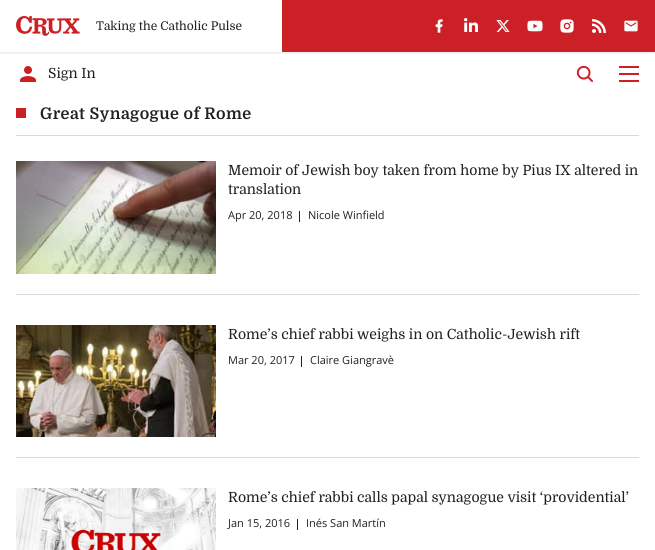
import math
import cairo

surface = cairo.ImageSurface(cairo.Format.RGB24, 655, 550)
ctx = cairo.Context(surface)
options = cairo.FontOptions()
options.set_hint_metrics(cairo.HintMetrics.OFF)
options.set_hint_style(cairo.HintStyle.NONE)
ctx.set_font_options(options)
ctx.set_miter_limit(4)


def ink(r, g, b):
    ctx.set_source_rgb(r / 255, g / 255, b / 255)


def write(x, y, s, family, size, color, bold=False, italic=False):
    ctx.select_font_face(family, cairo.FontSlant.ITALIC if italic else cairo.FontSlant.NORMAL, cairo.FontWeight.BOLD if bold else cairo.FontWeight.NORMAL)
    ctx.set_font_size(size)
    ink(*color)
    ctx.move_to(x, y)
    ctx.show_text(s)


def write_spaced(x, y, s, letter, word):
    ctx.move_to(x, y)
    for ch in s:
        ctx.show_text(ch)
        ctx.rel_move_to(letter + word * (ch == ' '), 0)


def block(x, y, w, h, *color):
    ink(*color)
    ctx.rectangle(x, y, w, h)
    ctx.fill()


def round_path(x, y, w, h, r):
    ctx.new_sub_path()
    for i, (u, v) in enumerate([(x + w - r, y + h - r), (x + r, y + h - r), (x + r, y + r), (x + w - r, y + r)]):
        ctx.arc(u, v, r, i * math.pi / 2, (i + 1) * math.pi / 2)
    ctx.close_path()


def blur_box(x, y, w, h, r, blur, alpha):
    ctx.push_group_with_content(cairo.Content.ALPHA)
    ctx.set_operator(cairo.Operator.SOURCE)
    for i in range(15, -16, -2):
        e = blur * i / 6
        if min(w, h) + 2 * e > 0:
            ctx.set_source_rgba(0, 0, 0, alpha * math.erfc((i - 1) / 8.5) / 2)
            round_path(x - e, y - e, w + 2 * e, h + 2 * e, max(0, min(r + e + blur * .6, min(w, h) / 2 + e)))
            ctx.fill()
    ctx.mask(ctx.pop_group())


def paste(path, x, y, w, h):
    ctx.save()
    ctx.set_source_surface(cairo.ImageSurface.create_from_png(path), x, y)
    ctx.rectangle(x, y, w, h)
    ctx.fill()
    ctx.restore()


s1 = dict(family="Domine", size=12, color=(33, 33, 33))
s2 = dict(family="Domine", size=14, color=(33, 33, 33))
s3 = dict(family="Open Sans", size=11, color=(33, 33, 33))

ink(255, 255, 255)
ctx.paint()
ctx.save()
ctx.rectangle(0, 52, 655, 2)
ctx.clip()
ink(0, 0, 0)
blur_box(0, 1, 655, 52, 0, 1.5, 0.1)
ctx.restore()
paste("pic1.png", 16, 16, 64, 20)
write(96, 30, "Taking the Catholic Pulse", **s1)
block(282, 0, 373, 52, 204, 32, 39)
paste("pic2.png", 435, 19, 8, 14)
paste("pic3.png", 464, 18, 14, 14)
paste("pic4.png", 496, 20, 14, 12)
paste("pic5.png", 527, 20, 16, 12)
paste("pic6.png", 560, 19, 14, 14)
paste("pic7.png", 592, 19, 14, 14)
paste("pic8.png", 624, 20, 14, 12)
paste("pic9.png", 20, 66, 16, 16)
write(48, 78, "Sign In", **s2)
paste("pic10.png", 576, 65, 17, 17)
block(619, 66, 20, 2, 204, 32, 39)
block(619, 73, 20, 2, 204, 32, 39)
block(619, 80, 20, 2, 204, 32, 39)
block(16, 135, 623, 1, 217, 217, 217)
block(16, 108, 10, 10, 204, 32, 39)
ctx.select_font_face("Domine", cairo.FontSlant.NORMAL, cairo.FontWeight.BOLD)
ctx.set_font_size(16)
ink(33, 33, 33)
write_spaced(40, 119, "Great Synagogue of Rome", 0.4, 0)
block(16, 294, 623, 1, 217, 217, 217)
paste("pic11.png", 16, 161, 200, 113)
write(228, 175, "Memoir of Jewish boy taken from home by Pius IX altered in", **s2)
write(228, 194, "translation", **s2)
write(228, 219, "Apr 20, 2018", **s3)
block(299, 211, 1, 11, 33, 33, 33)
write(308, 219, "Nicole Winfield", **s3)
block(16, 457, 623, 1, 217, 217, 217)
paste("pic12.png", 16, 325, 200, 112)
write(228, 339, "Rome’s chief rabbi weighs in on Catholic-Jewish rift", **s2)
write(228, 364, "Mar 20, 2017", **s3)
block(301, 356, 1, 11, 33, 33, 33)
write(310, 364, "Claire Giangravè", **s3)
paste("pic13.png", 16, 488, 200, 62)
write(228, 502, "Rome’s chief rabbi calls papal synagogue visit ‘providential’", **s2)
write(228, 527, "Jan 15, 2016", **s3)
block(297, 519, 1, 11, 33, 33, 33)
write(306, 527, "Inés San Martín", **s3)
surface.write_to_png("screenshot.png")
